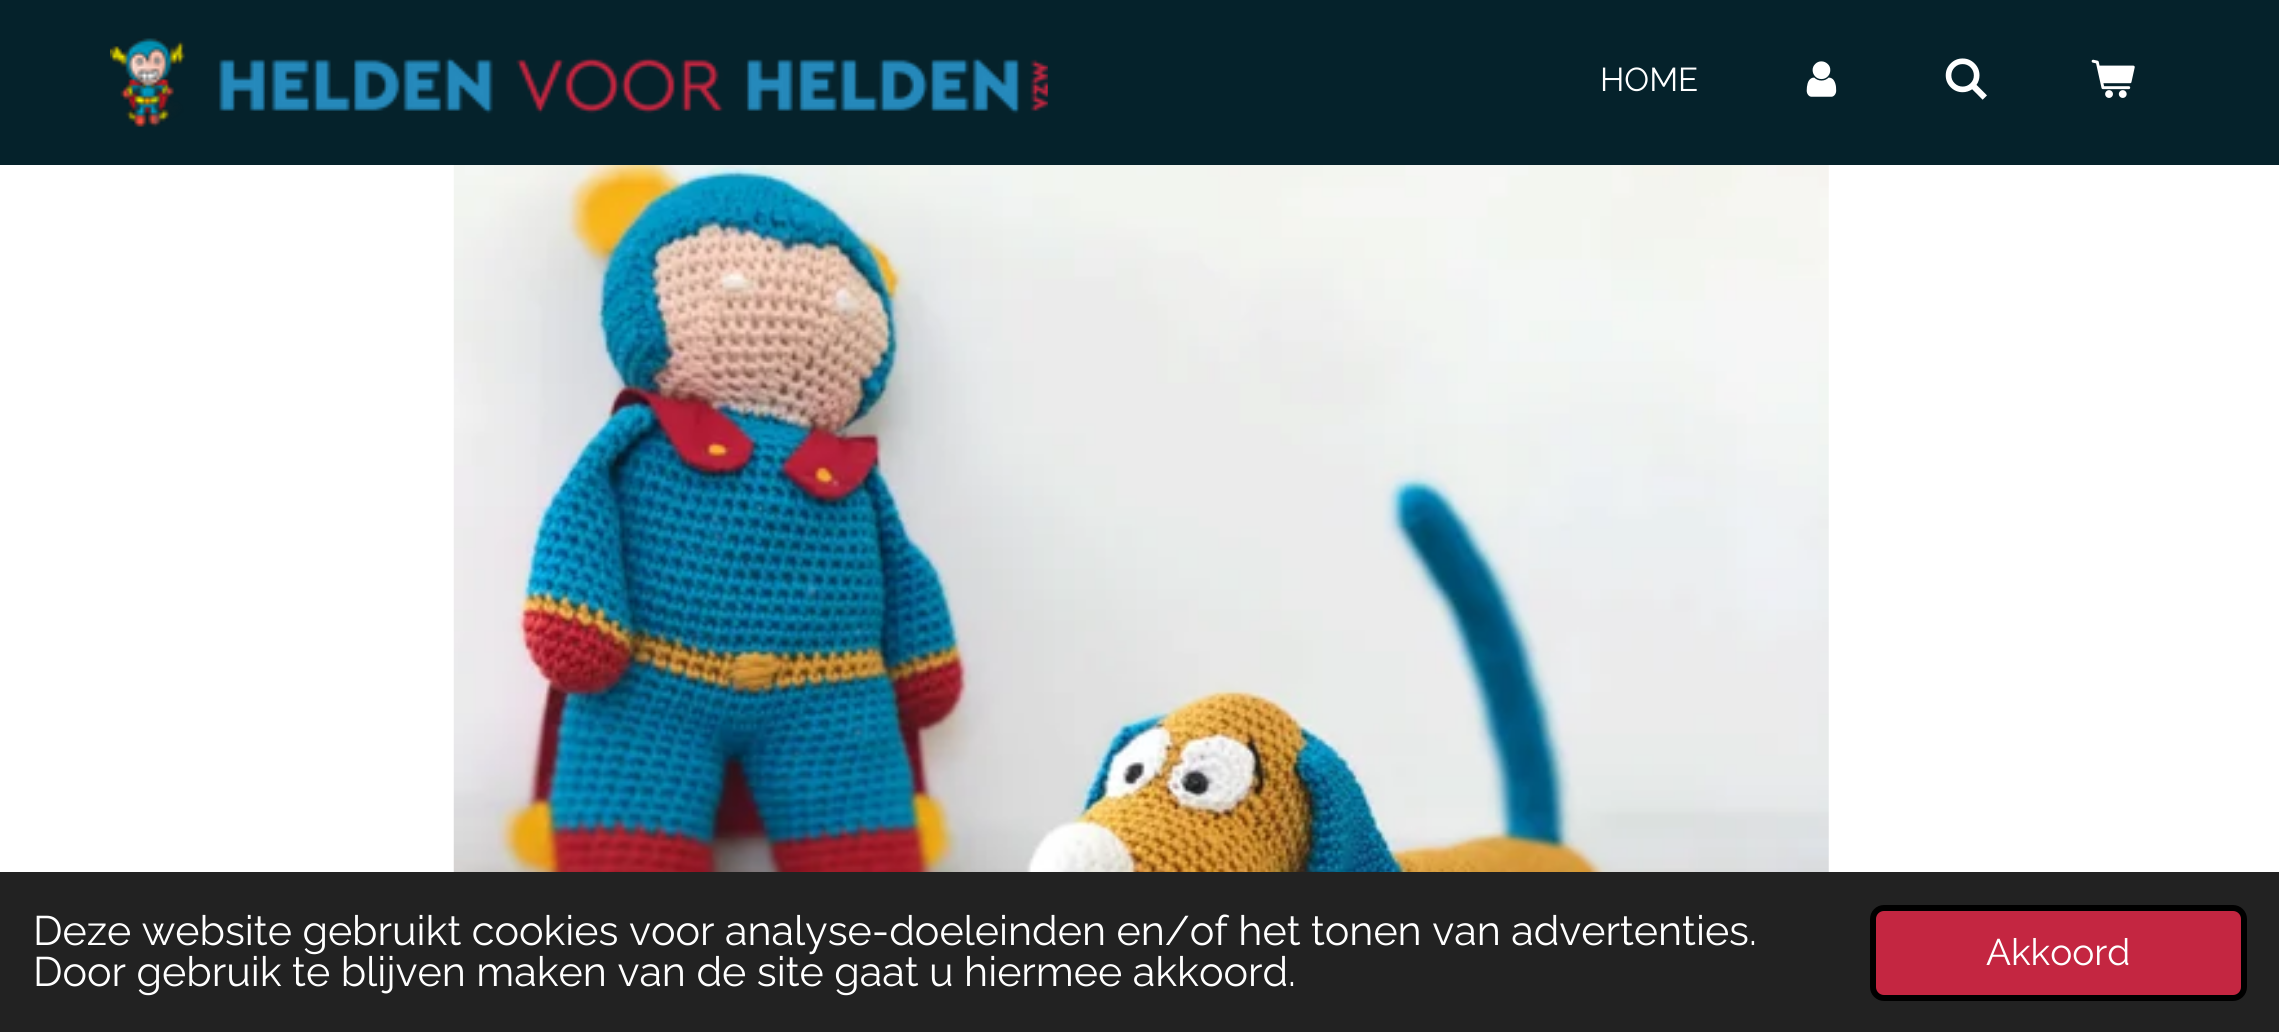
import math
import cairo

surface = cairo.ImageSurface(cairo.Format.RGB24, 2279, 1032)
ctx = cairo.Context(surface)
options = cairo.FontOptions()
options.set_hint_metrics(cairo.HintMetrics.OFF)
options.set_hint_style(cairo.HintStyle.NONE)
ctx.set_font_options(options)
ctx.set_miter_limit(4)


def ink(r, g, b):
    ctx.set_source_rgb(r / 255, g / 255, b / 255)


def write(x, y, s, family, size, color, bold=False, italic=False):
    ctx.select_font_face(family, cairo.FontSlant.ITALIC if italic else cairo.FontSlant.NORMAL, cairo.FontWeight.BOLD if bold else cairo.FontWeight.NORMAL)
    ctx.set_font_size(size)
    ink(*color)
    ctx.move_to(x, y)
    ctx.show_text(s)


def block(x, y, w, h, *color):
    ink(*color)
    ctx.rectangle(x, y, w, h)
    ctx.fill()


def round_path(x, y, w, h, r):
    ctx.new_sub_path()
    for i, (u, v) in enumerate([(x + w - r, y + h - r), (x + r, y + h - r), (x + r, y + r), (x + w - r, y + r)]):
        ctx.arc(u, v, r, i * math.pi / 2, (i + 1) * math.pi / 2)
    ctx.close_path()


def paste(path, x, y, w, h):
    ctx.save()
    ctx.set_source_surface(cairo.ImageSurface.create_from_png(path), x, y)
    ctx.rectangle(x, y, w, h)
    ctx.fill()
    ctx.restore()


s1 = dict(family="Raleway", size=33, color=(255, 255, 255))
s2 = dict(family="Raleway", size=41.25, color=(255, 255, 255))
s3 = dict(family="Raleway", size=37, color=(255, 255, 255))

ink(255, 255, 255)
ctx.paint()
block(0, 0, 2279, 165, 5, 34, 43)
paste("pic1.png", 110, 38, 938, 89)
write(1600, 91, "HOME", **s1)
paste("pic2.png", 1806, 61, 31, 36)
paste("pic3.png", 1945, 58, 42, 42)
paste("pic4.png", 2091, 59, 44, 39)
paste("pic5.png", 453, 165, 1376, 707)
block(0, 872, 2279, 160, 34, 34, 34)
write(33, 945, "Deze website gebruikt cookies voor analyse-doeleinden en/of het tonen van advertenties.", **s2)
write(33, 986, "Door gebruik te blijven maken van de site gaat u hiermee akkoord.", **s2)
ink(196, 38, 65)
round_path(1873, 908, 371, 90, 11)
ctx.fill_preserve()
ink(0, 0, 0)
ctx.set_line_width(6)
ctx.stroke()
write(1986, 965, "Akkoord", **s3)
surface.write_to_png("screenshot.png")
